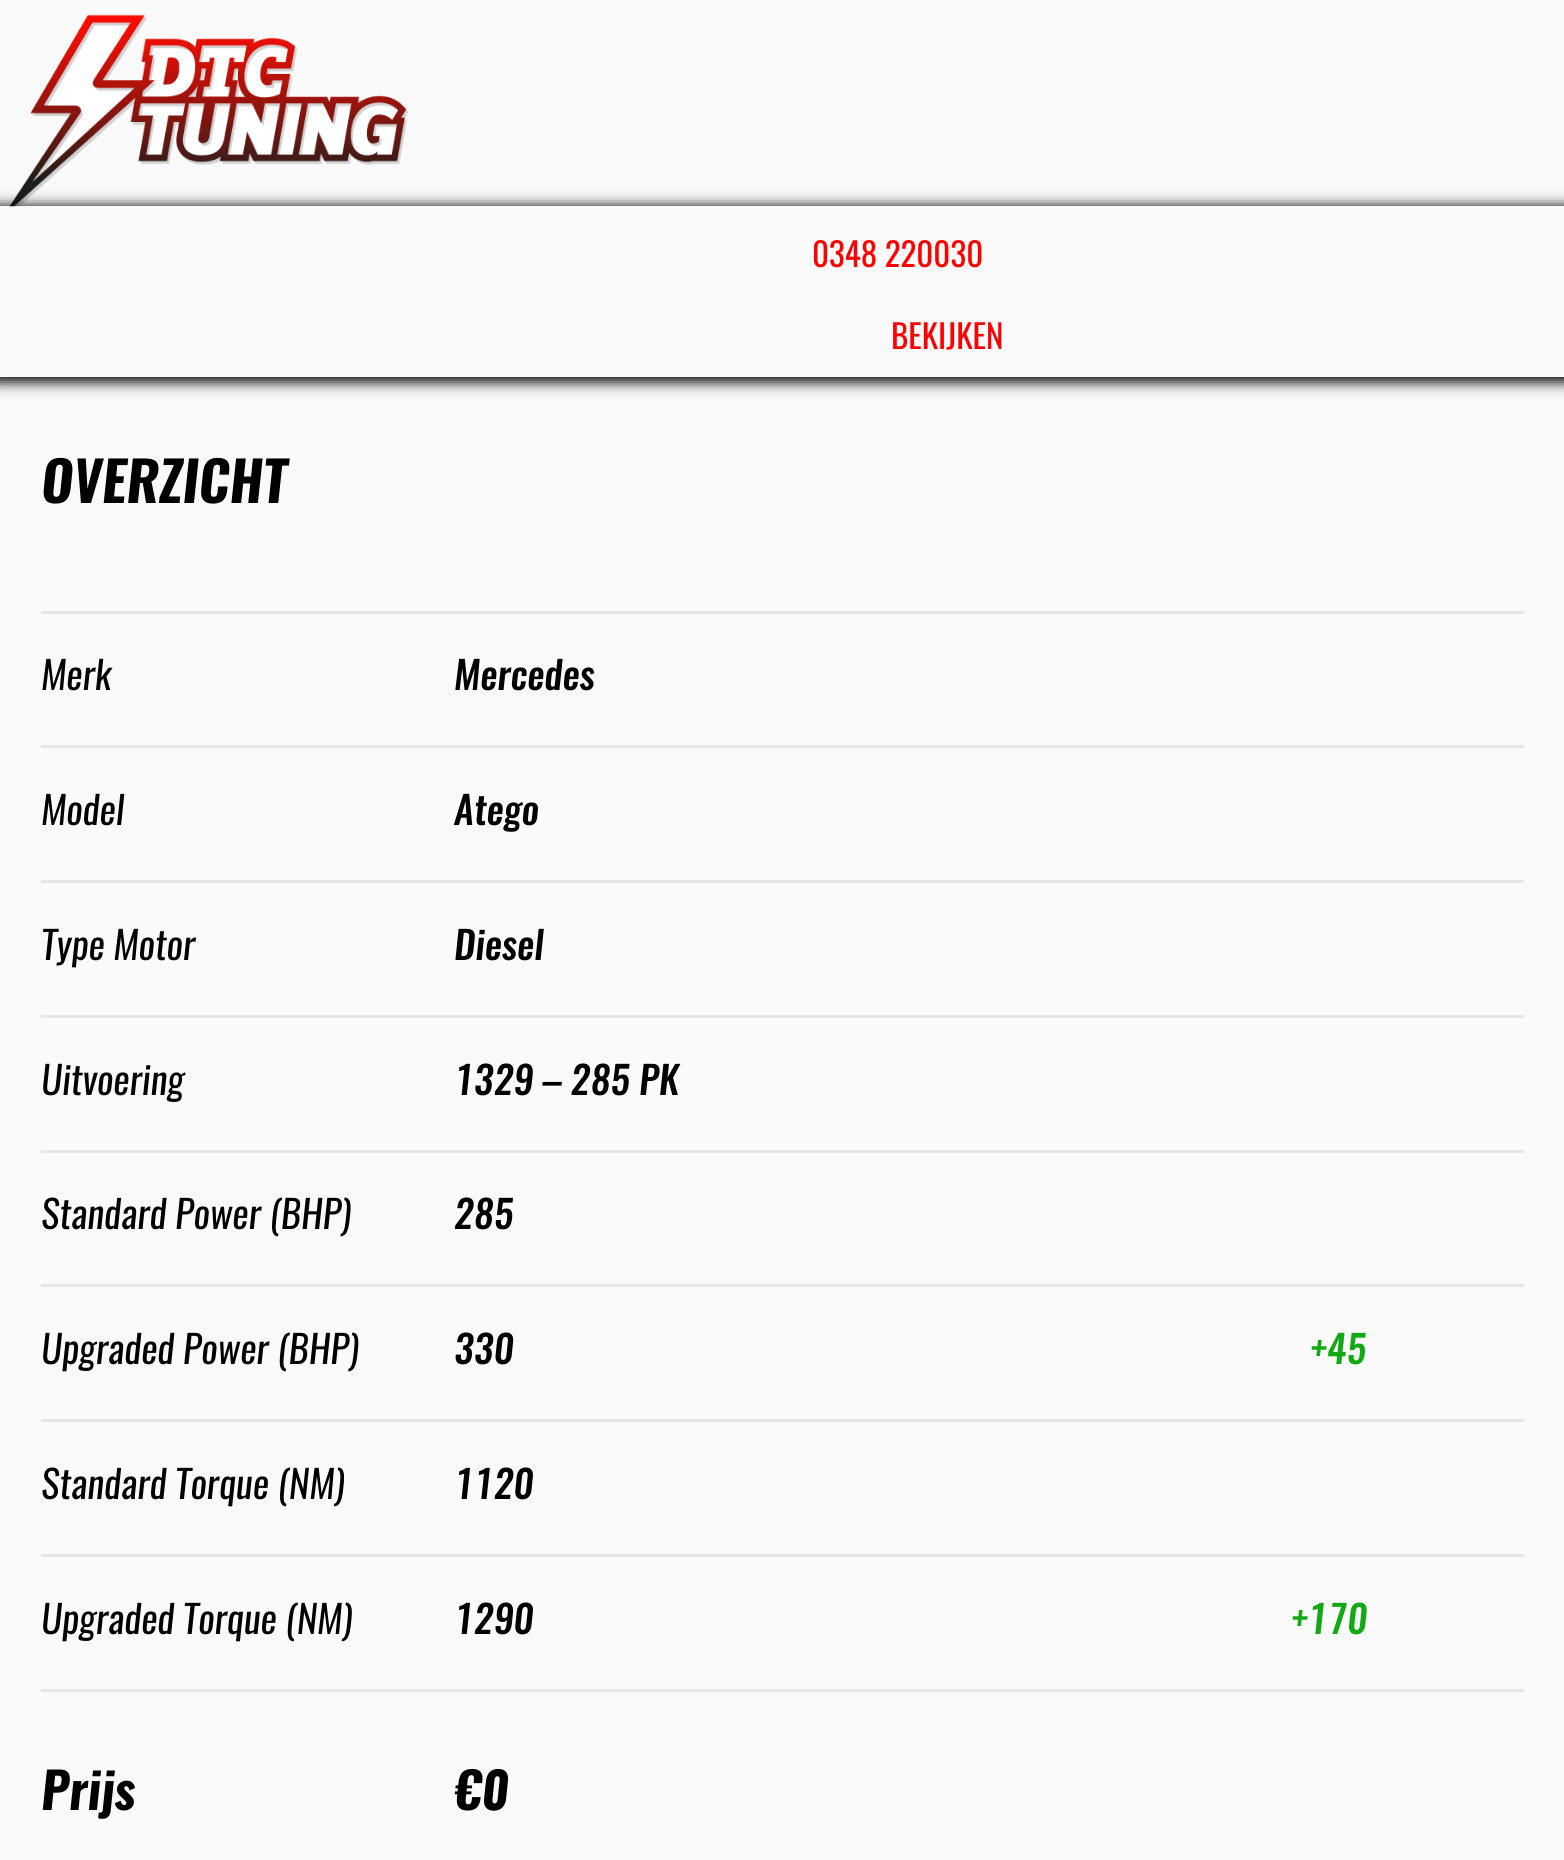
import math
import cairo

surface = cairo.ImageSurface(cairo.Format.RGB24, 1564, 1860)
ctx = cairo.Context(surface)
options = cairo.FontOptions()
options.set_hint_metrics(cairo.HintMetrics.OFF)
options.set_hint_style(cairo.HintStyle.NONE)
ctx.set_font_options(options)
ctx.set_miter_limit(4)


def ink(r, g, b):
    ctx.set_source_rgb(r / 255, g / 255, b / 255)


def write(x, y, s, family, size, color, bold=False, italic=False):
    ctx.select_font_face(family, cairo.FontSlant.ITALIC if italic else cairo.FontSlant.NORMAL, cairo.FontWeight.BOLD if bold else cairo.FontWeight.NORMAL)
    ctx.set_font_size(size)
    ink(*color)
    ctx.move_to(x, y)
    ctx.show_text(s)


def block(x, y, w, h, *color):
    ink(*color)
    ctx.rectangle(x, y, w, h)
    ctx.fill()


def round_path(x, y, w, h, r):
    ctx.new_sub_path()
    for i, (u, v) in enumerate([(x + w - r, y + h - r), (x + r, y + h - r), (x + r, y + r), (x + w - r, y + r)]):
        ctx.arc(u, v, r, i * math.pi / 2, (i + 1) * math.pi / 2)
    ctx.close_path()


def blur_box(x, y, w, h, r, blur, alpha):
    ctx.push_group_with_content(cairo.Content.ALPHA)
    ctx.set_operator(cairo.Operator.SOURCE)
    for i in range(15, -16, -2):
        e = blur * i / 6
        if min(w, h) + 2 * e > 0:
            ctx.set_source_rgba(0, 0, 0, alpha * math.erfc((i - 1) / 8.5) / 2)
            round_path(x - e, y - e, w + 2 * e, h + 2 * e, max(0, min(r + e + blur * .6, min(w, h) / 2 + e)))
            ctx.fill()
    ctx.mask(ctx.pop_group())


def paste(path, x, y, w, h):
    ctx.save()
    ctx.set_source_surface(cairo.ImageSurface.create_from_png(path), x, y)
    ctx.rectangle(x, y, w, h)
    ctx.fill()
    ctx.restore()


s1 = dict(family="Oswald", size=33, color=(255, 0, 0))
s2 = dict(family="Oswald", size=55, color=(0, 0, 0), bold=True, italic=True)
s3 = dict(family="Oswald", size=38.5, color=(0, 0, 0), italic=True)
s4 = dict(family="Oswald Medium", size=38.5, color=(0, 0, 0), italic=True)
s5 = dict(family="Oswald Medium", size=38.5, color=(18, 169, 21), italic=True)
s6 = dict(family="Oswald", size=50, color=(0, 0, 0), bold=True, italic=True)

ink(250, 250, 250)
ctx.paint()
paste("pic1.png", 9, 14, 400, 193)
ctx.save()
ctx.set_fill_rule(cairo.FillRule.EVEN_ODD)
ctx.new_path()
ctx.move_to(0, 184)
ctx.line_to(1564, 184)
ctx.line_to(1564, 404)
ctx.line_to(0, 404)
ctx.close_path()
ctx.move_to(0, 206)
ctx.line_to(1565, 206)
ctx.line_to(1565, 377)
ctx.line_to(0, 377)
ctx.close_path()
ctx.clip()
ink(0, 0, 0)
blur_box(-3, 206, 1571, 176, 0, 7, 1)
ctx.restore()
write(812, 267, "0348 220030", **s1)
write(891, 349, "BEKIJKEN", **s1)
write(41, 503, "OVERZICHT", **s2)
block(41, 611, 1483, 3, 230, 230, 230)
write(41, 690, "Merk", **s3)
write(454, 690, "Mercedes", **s4)
block(41, 745, 1483, 3, 230, 230, 230)
write(41, 825, "Model", **s3)
write(454, 825, "Atego", **s4)
block(41, 880, 1483, 3, 230, 230, 230)
write(41, 960, "Type Motor", **s3)
write(454, 960, "Diesel", **s4)
block(41, 1015, 1483, 3, 230, 230, 230)
write(41, 1095, "Uitvoering", **s3)
write(454, 1095, "1329 – 285 PK", **s4)
block(41, 1150, 1483, 3, 230, 230, 230)
write(41, 1229, "Standard Power (BHP)", **s3)
write(454, 1229, "285", **s4)
block(41, 1284, 1483, 3, 230, 230, 230)
write(41, 1364, "Upgraded Power (BHP)", **s3)
write(454, 1364, "330", **s4)
write(1310, 1364, "+45", **s5)
block(41, 1419, 1483, 3, 230, 230, 230)
write(41, 1499, "Standard Torque (NM)", **s3)
write(454, 1499, "1120", **s4)
block(41, 1554, 1483, 3, 230, 230, 230)
block(41, 1689, 1483, 3, 230, 230, 230)
write(41, 1634, "Upgraded Torque (NM)", **s3)
write(454, 1634, "1290", **s4)
write(1291, 1634, "+170", **s5)
write(41, 1810, "Prijs", **s6)
write(454, 1810, "€0", **s6)
surface.write_to_png("screenshot.png")
